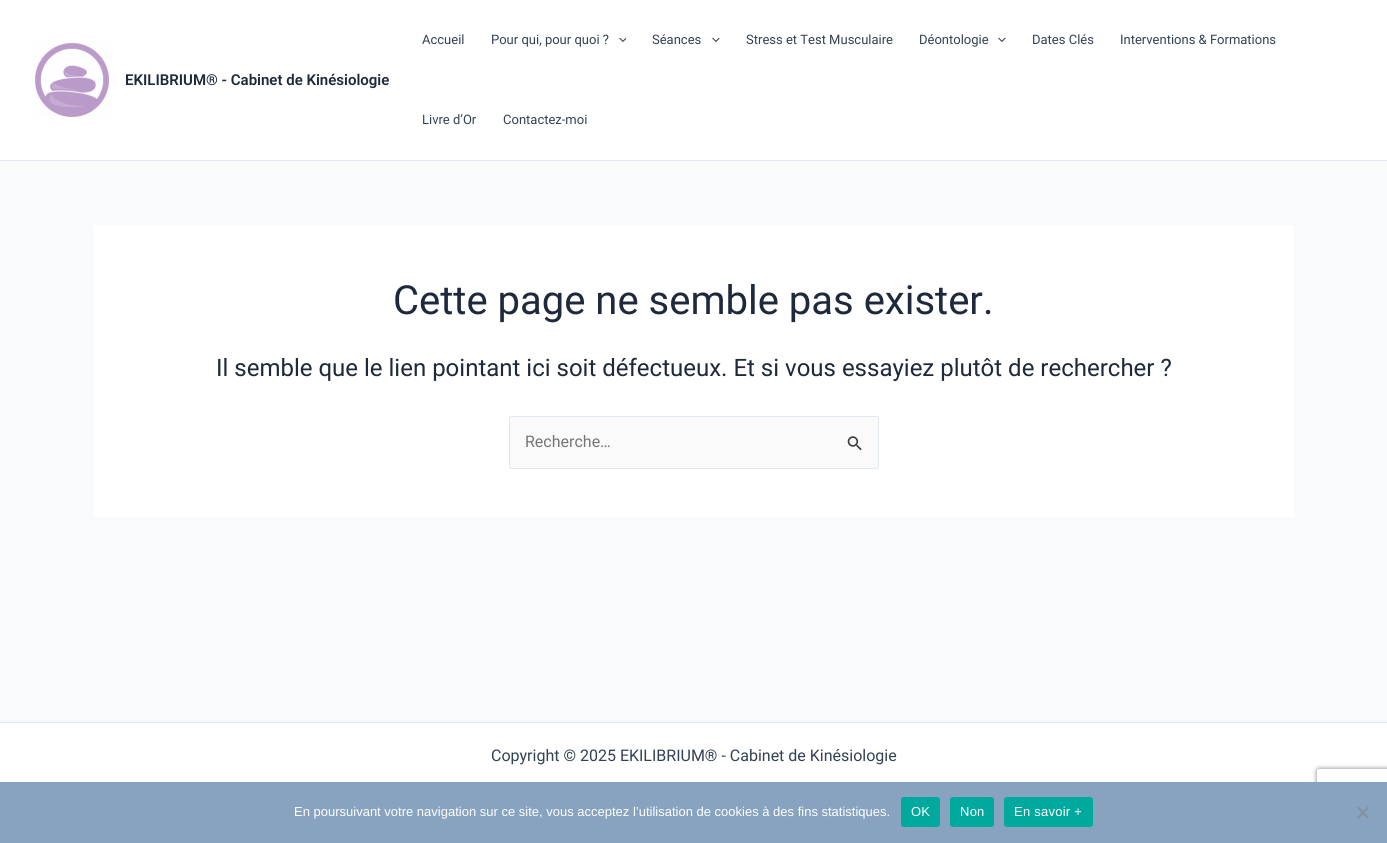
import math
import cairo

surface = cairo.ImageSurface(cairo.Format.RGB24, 1387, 843)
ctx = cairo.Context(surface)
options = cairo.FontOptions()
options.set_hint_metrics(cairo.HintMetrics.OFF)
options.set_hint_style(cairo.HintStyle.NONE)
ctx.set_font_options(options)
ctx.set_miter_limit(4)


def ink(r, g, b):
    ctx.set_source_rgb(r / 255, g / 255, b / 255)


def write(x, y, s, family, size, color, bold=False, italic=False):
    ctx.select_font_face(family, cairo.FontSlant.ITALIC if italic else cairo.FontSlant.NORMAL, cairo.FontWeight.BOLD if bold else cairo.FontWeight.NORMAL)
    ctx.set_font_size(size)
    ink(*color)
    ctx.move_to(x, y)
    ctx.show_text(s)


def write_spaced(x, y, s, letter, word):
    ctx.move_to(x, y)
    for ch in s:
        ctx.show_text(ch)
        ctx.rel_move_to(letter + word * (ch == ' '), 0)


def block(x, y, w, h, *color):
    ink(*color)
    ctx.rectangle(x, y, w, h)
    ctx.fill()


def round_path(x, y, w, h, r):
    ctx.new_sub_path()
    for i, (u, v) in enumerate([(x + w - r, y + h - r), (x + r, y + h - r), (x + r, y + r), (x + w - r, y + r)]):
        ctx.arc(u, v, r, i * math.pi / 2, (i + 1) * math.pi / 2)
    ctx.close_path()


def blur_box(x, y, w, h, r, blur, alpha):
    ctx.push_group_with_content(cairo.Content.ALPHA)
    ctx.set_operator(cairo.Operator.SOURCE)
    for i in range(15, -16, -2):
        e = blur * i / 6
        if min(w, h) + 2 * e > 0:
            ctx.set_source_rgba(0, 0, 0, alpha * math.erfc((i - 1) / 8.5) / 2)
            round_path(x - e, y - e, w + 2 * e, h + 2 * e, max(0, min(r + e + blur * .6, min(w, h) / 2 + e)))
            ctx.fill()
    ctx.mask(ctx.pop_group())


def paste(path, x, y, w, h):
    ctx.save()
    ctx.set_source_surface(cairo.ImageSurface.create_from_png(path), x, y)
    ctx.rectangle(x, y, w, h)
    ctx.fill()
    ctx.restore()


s1 = dict(family="Roboto SemiBold", size=15, color=(30, 41, 59))
s2 = dict(family="Roboto", size=13, color=(51, 65, 85))
s3 = dict(family="Roboto", size=40, color=(30, 41, 59))
s4 = dict(family="Roboto", size=24, color=(30, 41, 59))
s5 = dict(family="Roboto", size=16, color=(117, 117, 117))
s6 = dict(family="Roboto", size=16, color=(51, 65, 85))
s7 = dict(family="Liberation Sans", size=13, color=(255, 255, 255))

ink(249, 250, 251)
ctx.paint()
block(0, 0, 1387, 160, 255, 255, 255)
block(0, 160, 1387, 1, 226, 232, 240)
paste("pic1.png", 35, 43, 74, 74)
write(125, 85, "EKILIBRIUM® - Cabinet de Kinésiologie", **s1)
write(422, 44, "Accueil", **s2)
write(491, 44, "Pour qui, pour quoi ?", **s2)
paste("pic2.png", 619, 37, 7, 5)
write(652, 44, "Séances", **s2)
paste("pic3.png", 712, 37, 8, 5)
write(746, 44, "Stress et Test Musculaire", **s2)
write(919, 44, "Déontologie", **s2)
paste("pic3.png", 998, 37, 8, 5)
write(1032, 44, "Dates Clés", **s2)
write(1120, 44, "Interventions & Formations", **s2)
write(422, 124, "Livre d’Or", **s2)
write(503, 124, "Contactez-moi", **s2)
block(94, 225, 1200, 292, 255, 255, 255)
write(393, 314, "Cette page ne semble pas exister.", **s3)
write(216, 376, "Il semble que le lien pointant ici soit défectueux. Et si vous essayiez plutôt de rechercher ?", **s4)
ink(250, 250, 250)
round_path(509.5, 416.5, 369, 52, 1.5)
ctx.fill_preserve()
ink(226, 232, 240)
ctx.set_line_width(1)
ctx.stroke()
write(525, 447, "Recherche…", **s5)
paste("pic4.png", 847, 436, 15, 15)
block(0, 723, 1387, 59, 255, 255, 255)
block(0, 722, 1387, 1, 226, 232, 240)
write(491, 761, "Copyright © 2025 EKILIBRIUM® - Cabinet de Kinésiologie", **s6)
ctx.save()
ctx.set_fill_rule(cairo.FillRule.EVEN_ODD)
ctx.new_path()
ctx.move_to(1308, 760)
ctx.line_to(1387, 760)
ctx.line_to(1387, 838)
ctx.line_to(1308, 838)
ctx.close_path()
ctx.move_to(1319, 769)
ctx.line_to(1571, 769)
ctx.curve_to(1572, 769, 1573, 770, 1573, 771)
ctx.line_to(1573, 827)
ctx.curve_to(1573, 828, 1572, 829, 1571, 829)
ctx.line_to(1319, 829)
ctx.curve_to(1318, 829, 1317, 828, 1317, 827)
ctx.line_to(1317, 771)
ctx.curve_to(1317, 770, 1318, 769, 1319, 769)
ctx.close_path()
ctx.clip()
ink(128, 128, 128)
blur_box(1317, 769, 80, 60, 2, 2.5, 1)
ctx.restore()
block(0, 782, 1387, 61, 135, 163, 191)
write(294, 816, "En poursuivant votre navigation sur ce site, vous acceptez l’utilisation de cookies à des fins statistiques.", **s7)
ink(0, 169, 157)
round_path(901, 797, 39, 30, 3)
ctx.fill()
ink(255, 255, 255)
write_spaced(911, 816, "OK", 0.25, 0)
ink(0, 169, 157)
round_path(950, 797, 44, 30, 3)
ctx.fill()
ink(255, 255, 255)
write_spaced(960, 816, "Non", 0.25, 0)
ink(0, 169, 157)
round_path(1004, 797, 89, 30, 3)
ctx.fill()
ink(255, 255, 255)
write_spaced(1014, 816, "En savoir +", 0.25, 0)
ink(132, 146, 160)
ctx.new_path()
ctx.move_to(1367.5, 806.5)
ctx.line_to(1369, 808)
ctx.line_to(1358.5, 819)
ctx.line_to(1357, 817.5)
ctx.close_path()
ctx.fill()
ctx.new_path()
ctx.move_to(1357, 808)
ctx.line_to(1358.5, 806.5)
ctx.line_to(1369, 817.5)
ctx.line_to(1367.5, 819)
ctx.close_path()
ctx.fill()
surface.write_to_png("screenshot.png")
